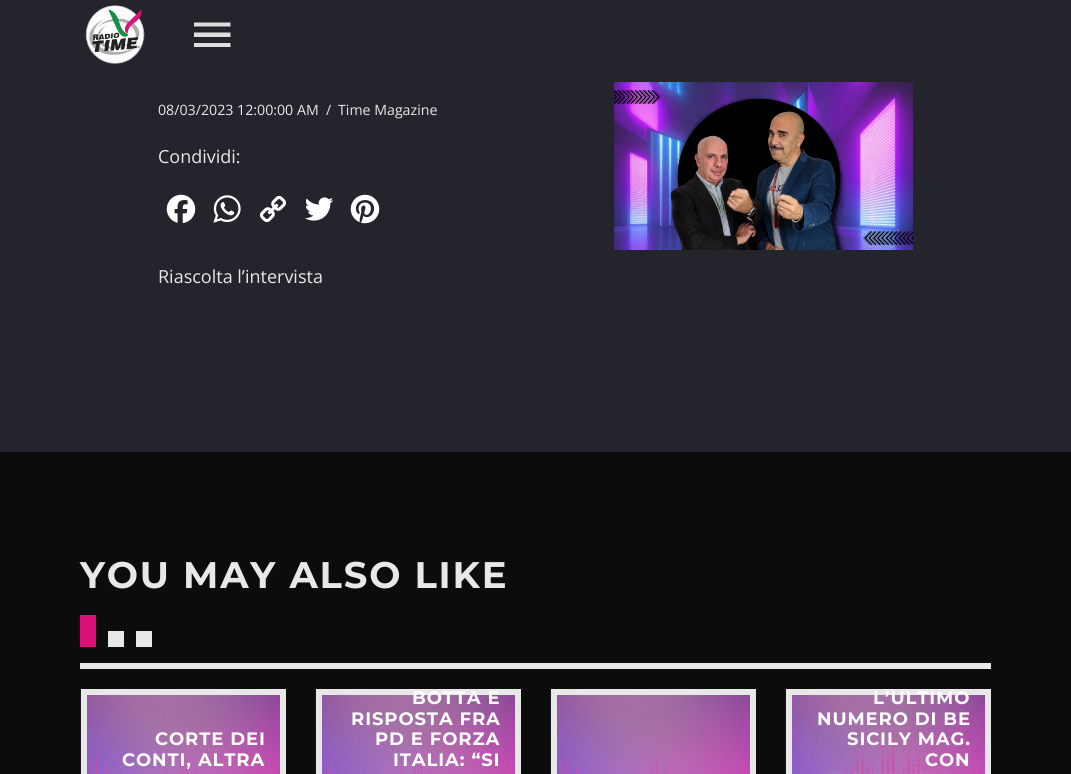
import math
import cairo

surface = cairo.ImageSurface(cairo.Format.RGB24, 1071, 774)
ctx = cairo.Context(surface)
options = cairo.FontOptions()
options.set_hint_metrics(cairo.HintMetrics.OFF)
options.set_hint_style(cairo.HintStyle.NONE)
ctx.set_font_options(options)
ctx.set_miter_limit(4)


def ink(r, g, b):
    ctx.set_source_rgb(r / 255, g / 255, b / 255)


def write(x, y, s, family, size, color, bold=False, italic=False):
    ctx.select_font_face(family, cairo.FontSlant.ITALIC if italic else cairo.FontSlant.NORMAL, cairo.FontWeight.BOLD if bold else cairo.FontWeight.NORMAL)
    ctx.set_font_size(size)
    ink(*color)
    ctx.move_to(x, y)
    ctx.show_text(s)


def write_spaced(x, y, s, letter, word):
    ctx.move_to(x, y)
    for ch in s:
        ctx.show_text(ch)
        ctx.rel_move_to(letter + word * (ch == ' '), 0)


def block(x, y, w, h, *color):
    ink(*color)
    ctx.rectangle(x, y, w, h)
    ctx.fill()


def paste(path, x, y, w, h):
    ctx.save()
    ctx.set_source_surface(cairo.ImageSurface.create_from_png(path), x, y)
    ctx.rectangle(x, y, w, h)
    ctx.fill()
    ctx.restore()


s1 = dict(family="Open Sans", size=14.2, color=(232, 232, 232))
s2 = dict(family="Open Sans", size=18, color=(232, 232, 232))

ink(36, 36, 45)
ctx.paint()
paste("pic1.png", 85, 5, 60, 59)
ink(222, 222, 222)
ctx.new_path()
ctx.move_to(194, 47)
ctx.line_to(230.5, 47)
ctx.line_to(230.5, 43)
ctx.line_to(194, 43)
ctx.close_path()
ctx.move_to(194, 37)
ctx.line_to(230.5, 37)
ctx.line_to(230.5, 32.5)
ctx.line_to(194, 32.5)
ctx.close_path()
ctx.move_to(194, 22.5)
ctx.line_to(194, 26.5)
ctx.line_to(230.5, 26.5)
ctx.line_to(230.5, 22.5)
ctx.close_path()
ctx.fill()
write(158, 115, "08/03/2023 12:00:00 AM", **s1)
write(326, 115, "/", **s1)
write(338, 115, "Time Magazine", **s1)
write(158, 163, "Condividi:", **s2)
paste("pic2.png", 166, 194, 30, 30)
paste("pic3.png", 213, 195, 28, 28)
paste("pic4.png", 259, 195, 28, 28)
paste("pic5.png", 305, 197, 29, 24)
paste("pic6.png", 350, 194, 30, 30)
write(158, 283, "Riascolta l’intervista", **s2)
paste("pic7.png", 614, 82, 299, 168)
block(0, 452, 1071, 322, 12, 12, 12)
ctx.select_font_face("Montserrat Thin")
ctx.set_font_size(37)
ink(232, 232, 232)
write_spaced(80, 588, "YOU MAY ALSO LIKE", 1.8, 0)
block(80, 663, 911, 6, 232, 232, 232)
block(80, 615, 16, 32, 218, 16, 120)
block(108, 631, 16, 16, 232, 232, 232)
block(136, 631, 16, 16, 232, 232, 232)
paste("pic8.png", 80, 689, 200, 85)
ctx.rectangle(84, 692, 199, 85)
ctx.set_line_width(6)
ctx.stroke()
ctx.set_font_size(18)
ink(255, 255, 255)
write_spaced(155, 745, "CORTE DEI", 0.9, 0)
write_spaced(122, 766, "CONTI, ALTRA", 0.9, 0)
paste("pic8.png", 315, 689, 200, 85)
ctx.rectangle(319, 692, 199, 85)
ink(232, 232, 232)
ctx.stroke()
ink(255, 255, 255)
write_spaced(412, 704, "BOTTA E", 0.9, 0)
write_spaced(351, 725, "RISPOSTA FRA", 0.9, 0)
write_spaced(375, 745, "PD E FORZA", 0.9, 0)
write_spaced(393, 766, "ITALIA: “SI", 0.9, 0)
paste("pic8.png", 550, 689, 200, 85)
ctx.rectangle(554, 692, 199, 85)
ink(232, 232, 232)
ctx.stroke()
paste("pic9.png", 785, 689, 200, 85)
ctx.rectangle(789, 692, 199, 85)
ctx.stroke()
ink(255, 255, 255)
write_spaced(873, 704, "L’ULTIMO", 0.9, 0)
write_spaced(817, 725, "NUMERO DI BE", 0.9, 0)
write_spaced(847, 745, "SICILY MAG.", 0.9, 0)
write_spaced(925, 766, "CON", 0.9, 0)
surface.write_to_png("screenshot.png")
